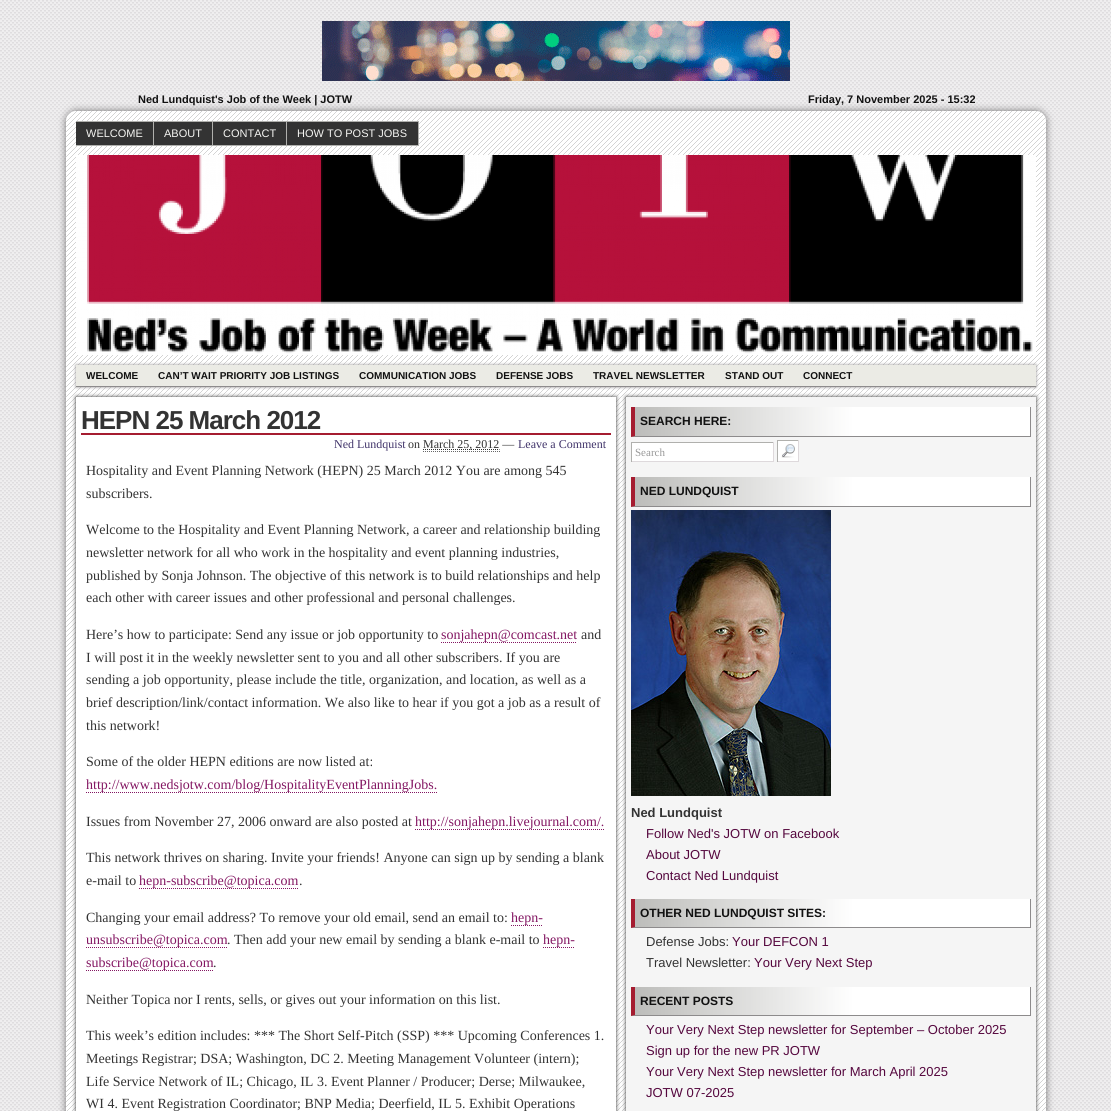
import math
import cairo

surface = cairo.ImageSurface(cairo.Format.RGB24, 1111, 1111)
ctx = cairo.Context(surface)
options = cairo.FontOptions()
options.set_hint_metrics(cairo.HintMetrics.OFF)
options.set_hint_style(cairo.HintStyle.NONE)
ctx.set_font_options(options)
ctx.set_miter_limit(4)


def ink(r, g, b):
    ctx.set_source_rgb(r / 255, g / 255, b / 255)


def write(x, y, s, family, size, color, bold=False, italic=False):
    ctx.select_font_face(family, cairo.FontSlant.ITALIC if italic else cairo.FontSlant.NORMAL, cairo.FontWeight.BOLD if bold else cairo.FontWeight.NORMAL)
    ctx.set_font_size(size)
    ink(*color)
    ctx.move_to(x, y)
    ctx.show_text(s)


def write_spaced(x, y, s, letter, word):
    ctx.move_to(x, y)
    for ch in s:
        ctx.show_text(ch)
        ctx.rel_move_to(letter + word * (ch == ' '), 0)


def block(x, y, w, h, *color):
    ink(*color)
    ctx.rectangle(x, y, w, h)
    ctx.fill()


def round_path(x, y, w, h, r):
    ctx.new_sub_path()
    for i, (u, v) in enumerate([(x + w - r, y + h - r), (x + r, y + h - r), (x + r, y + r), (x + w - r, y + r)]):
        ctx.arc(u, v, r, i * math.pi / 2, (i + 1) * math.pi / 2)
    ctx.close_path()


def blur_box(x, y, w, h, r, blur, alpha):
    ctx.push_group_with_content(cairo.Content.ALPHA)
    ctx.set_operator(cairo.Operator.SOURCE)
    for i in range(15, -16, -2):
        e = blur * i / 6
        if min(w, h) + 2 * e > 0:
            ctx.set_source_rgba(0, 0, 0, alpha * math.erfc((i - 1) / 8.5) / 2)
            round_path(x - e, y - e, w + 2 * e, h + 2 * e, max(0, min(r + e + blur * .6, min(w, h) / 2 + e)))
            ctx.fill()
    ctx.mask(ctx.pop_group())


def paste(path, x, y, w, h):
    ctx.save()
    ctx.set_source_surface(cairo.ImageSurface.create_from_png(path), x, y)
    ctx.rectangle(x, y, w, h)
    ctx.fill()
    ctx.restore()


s1 = dict(family="Liberation Sans", size=11, color=(17, 17, 17), bold=True)
s2 = dict(family="Liberation Sans", size=11, color=(245, 245, 242))
s3 = dict(family="Liberation Sans", size=10, color=(17, 17, 17), bold=True)
s4 = dict(family="Liberation Serif", size=12, color=(64, 51, 105))
s5 = dict(family="Liberation Serif", size=12, color=(51, 51, 51))
s6 = dict(family="Liberation Serif", size=14, color=(51, 51, 51))
s7 = dict(family="Liberation Serif", size=14, color=(131, 22, 98))
s8 = dict(family="Liberation Sans", size=12, color=(17, 17, 17), bold=True)
s9 = dict(family="Liberation Serif", size=11, color=(153, 153, 153))
s10 = dict(family="Liberation Sans", size=13, color=(51, 51, 51), bold=True)
s11 = dict(family="Liberation Sans", size=13, color=(85, 7, 62))
s12 = dict(family="Liberation Sans", size=13, color=(51, 51, 51))

ink(255, 255, 255)
ctx.paint()
paste("pic1.png", 0, 0, 1111, 1111)
paste("pic2.png", 322, 21, 468, 60)
ink(0, 0, 0)
blur_box(66, 111, 980, 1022, 10, 4, 0.5)
write(138, 103, "Ned Lundquist's Job of the Week | JOTW", **s1)
write(808, 103, "Friday, 7 November 2025 - 15:32", **s1)
ink(235, 235, 235)
round_path(66, 111, 980, 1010, 10)
ctx.fill()
paste("pic3.png", 66, 111, 980, 1000)
block(76, 145, 343, 1, 176, 176, 173)
block(76, 122, 77, 23, 51, 51, 51)
block(76, 121, 343, 1, 176, 176, 173)
block(153, 121, 1, 25, 176, 176, 173)
write(86, 137, "WELCOME", **s2)
block(154, 122, 58, 23, 51, 51, 51)
block(212, 121, 1, 25, 176, 176, 173)
write(164, 137, "ABOUT", **s2)
block(213, 122, 73, 23, 51, 51, 51)
block(286, 121, 1, 25, 176, 176, 173)
write(223, 137, "CONTACT", **s2)
block(287, 122, 131, 23, 51, 51, 51)
block(418, 121, 1, 25, 176, 176, 173)
write(297, 137, "HOW TO POST JOBS", **s2)
paste("pic4.png", 76, 155, 960, 200)
ink(141, 139, 140)
blur_box(76, 365, 960, 22, 0, 1.5, 1)
block(76, 365, 960, 21, 235, 235, 229)
block(76, 386, 960, 1, 141, 139, 140)
write(86, 379, "WELCOME", **s3)
write(158, 379, "CAN’T WAIT PRIORITY JOB LISTINGS", **s3)
write(359, 379, "COMMUNICATION JOBS", **s3)
write(496, 379, "DEFENSE JOBS", **s3)
write(593, 379, "TRAVEL NEWSLETTER", **s3)
write(725, 379, "STAND OUT", **s3)
write(803, 379, "CONNECT", **s3)
ink(51, 51, 51)
blur_box(76, 397, 540, 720, 0, 2, 1)
block(76, 397, 540, 714, 255, 255, 255)
block(81, 433, 530, 2, 165, 28, 48)
ctx.set_font_size(26)
ink(51, 51, 51)
write_spaced(81, 429, "HEPN 25 March 2012", -1, 0)
write(334, 448, "Ned Lundquist", **s4)
write(408, 448, "on", **s5)
ctx.new_path()
ctx.move_to(423, 451.5)
ctx.line_to(500, 451.5)
ink(102, 102, 102)
ctx.set_line_width(1)
ctx.set_dash([1, 1])
ctx.stroke()
ctx.new_path()
ctx.move_to(423, 449.5)
ctx.line_to(499.5, 449.5)
ink(51, 51, 51)
ctx.stroke()
write(423, 448, "March 25, 2012 —", **s5)
write(518, 448, "Leave a Comment", **s4)
write(86, 475, "Hospitality and Event Planning Network (HEPN) 25 March 2012 You are among 545", **s6)
write(86, 498, "subscribers.", **s6)
write(86, 534, "Welcome to the Hospitality and Event Planning Network, a career and relationship building", **s6)
write(86, 557, "newsletter network for all who work in the hospitality and event planning industries,", **s6)
write(86, 580, "published by Sonja Johnson. The objective of this network is to build relationships and help", **s6)
write(86, 602, "each other with career issues and other professional and personal challenges.", **s6)
write(86, 639, "Here’s how to participate: Send any issue or job opportunity to", **s6)
write(441, 639, "sonjahepn@comcast.net", **s7)
ctx.new_path()
ctx.move_to(441, 642.5)
ctx.line_to(577, 642.5)
ctx.stroke()
write(581, 639, "and", **s6)
write(86, 662, "I will post it in the weekly newsletter sent to you and all other subscribers. If you are", **s6)
write(86, 684, "sending a job opportunity, please include the title, organization, and location, as well as a", **s6)
write(86, 707, "brief description/link/contact information. We also like to hear if you got a job as a result of", **s6)
write(86, 730, "this network!", **s6)
write(86, 766, "Some of the older HEPN editions are now listed at:", **s6)
write(86, 789, "http://www.nedsjotw.com/blog/HospitalityEventPlanningJobs.", **s7)
ctx.new_path()
ctx.move_to(86, 792.5)
ctx.line_to(437, 792.5)
ctx.stroke()
write(86, 826, "Issues from November 27, 2006 onward are also posted at", **s6)
write(415, 826, "http://sonjahepn.livejournal.com/.", **s7)
ctx.new_path()
ctx.move_to(415, 829.5)
ctx.line_to(604, 829.5)
ctx.stroke()
write(86, 862, "This network thrives on sharing. Invite your friends! Anyone can sign up by sending a blank", **s6)
write(86, 885, "e-mail to", **s6)
write(139, 885, "hepn-subscribe@topica.com", **s7)
ctx.new_path()
ctx.move_to(139, 888.5)
ctx.line_to(299, 888.5)
ctx.stroke()
write(299, 885, ".", **s6)
write(86, 922, "Changing your email address? To remove your old email, send an email to:", **s6)
write(511, 922, "hepn-", **s7)
ctx.new_path()
ctx.move_to(511, 925.5)
ctx.line_to(543, 925.5)
ctx.stroke()
write(86, 944, "unsubscribe@topica.com", **s7)
ctx.new_path()
ctx.move_to(86, 947.5)
ctx.line_to(227, 947.5)
ctx.stroke()
write(227, 944, ". Then add your new email by sending a blank e-mail to", **s6)
write(543, 944, "hepn-", **s7)
ctx.new_path()
ctx.move_to(543, 947.5)
ctx.line_to(575, 947.5)
ctx.stroke()
write(86, 967, "subscribe@topica.com", **s7)
ctx.new_path()
ctx.move_to(86, 970.5)
ctx.line_to(213, 970.5)
ctx.stroke()
write(213, 967, ".", **s6)
write(86, 1004, "Neither Topica nor I rents, sells, or gives out your information on this list.", **s6)
write(86, 1040, "This week’s edition includes: *** The Short Self-Pitch (SSP) *** Upcoming Conferences 1.", **s6)
write(86, 1063, "Meetings Registrar; DSA; Washington, DC 2. Meeting Management Volunteer (intern);", **s6)
write(86, 1086, "Life Service Network of IL; Chicago, IL 3. Event Planner / Producer; Derse; Milwaukee,", **s6)
write(86, 1108, "WI 4. Event Registration Coordinator; BNP Media; Deerfield, IL 5. Exhibit Operations", **s6)
ink(51, 51, 51)
blur_box(626, 397, 410, 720, 0, 2, 1)
block(626, 397, 410, 714, 245, 245, 245)
block(631, 407, 221, 30, 176, 176, 173)
paste("pic5.png", 635, 407, 395, 29)
block(1030, 407, 1, 30, 141, 139, 140)
ctx.new_path()
ctx.move_to(1031, 437)
ctx.line_to(631, 437)
ctx.line_to(635, 436)
ctx.line_to(1030, 436)
ctx.close_path()
ctx.fill()
ink(165, 28, 48)
ctx.new_path()
ctx.move_to(631, 437)
ctx.line_to(631, 407)
ctx.line_to(635, 407)
ctx.line_to(635, 436)
ctx.close_path()
ctx.fill()
write(640, 425, "SEARCH HERE:", **s8)
block(777, 440, 22, 1, 176, 176, 173)
block(798, 440, 1, 22, 222, 217, 220)
block(777, 461, 22, 1, 222, 217, 220)
block(777, 440, 1, 22, 176, 176, 173)
block(778, 441, 20, 20, 255, 255, 255)
block(632, 443, 141, 18, 255, 255, 255)
block(631, 442, 143, 1, 176, 176, 173)
block(773, 442, 1, 20, 222, 217, 220)
block(631, 461, 143, 1, 222, 217, 220)
block(631, 442, 1, 20, 176, 176, 173)
write(635, 456, "Search", **s9)
paste("pic6.png", 781, 444, 14, 14)
block(631, 477, 221, 30, 176, 176, 173)
paste("pic5.png", 635, 477, 395, 29)
block(1030, 477, 1, 30, 141, 139, 140)
ctx.new_path()
ctx.move_to(1031, 507)
ctx.line_to(631, 507)
ctx.line_to(635, 506)
ctx.line_to(1030, 506)
ctx.close_path()
ctx.fill()
ink(165, 28, 48)
ctx.new_path()
ctx.move_to(631, 507)
ctx.line_to(631, 477)
ctx.line_to(635, 477)
ctx.line_to(635, 506)
ctx.close_path()
ctx.fill()
write(640, 495, "NED LUNDQUIST", **s8)
paste("pic7.png", 631, 510, 200, 286)
write(631, 817, "Ned Lundquist", **s10)
write(646, 838, "Follow Ned's JOTW on Facebook", **s11)
write(646, 859, "About JOTW", **s11)
write(646, 880, "Contact Ned Lundquist", **s11)
block(631, 899, 221, 29, 176, 176, 173)
paste("pic8.png", 635, 899, 395, 28)
block(1030, 899, 1, 29, 141, 139, 140)
ctx.new_path()
ctx.move_to(1031, 928)
ctx.line_to(631, 928)
ctx.line_to(635, 927)
ctx.line_to(1030, 927)
ctx.close_path()
ctx.fill()
ink(165, 28, 48)
ctx.new_path()
ctx.move_to(631, 928)
ctx.line_to(631, 899)
ctx.line_to(635, 899)
ctx.line_to(635, 927)
ctx.close_path()
ctx.fill()
write(640, 917, "OTHER NED LUNDQUIST SITES:", **s8)
write(646, 946, "Defense Jobs:", **s12)
write(732, 946, "Your DEFCON 1", **s11)
write(646, 967, "Travel Newsletter:", **s12)
write(754, 967, "Your Very Next Step", **s11)
block(631, 987, 221, 29, 176, 176, 173)
paste("pic8.png", 635, 987, 395, 28)
block(1030, 987, 1, 29, 141, 139, 140)
ctx.new_path()
ctx.move_to(1031, 1016)
ctx.line_to(631, 1016)
ctx.line_to(635, 1015)
ctx.line_to(1030, 1015)
ctx.close_path()
ctx.fill()
ink(165, 28, 48)
ctx.new_path()
ctx.move_to(631, 1016)
ctx.line_to(631, 987)
ctx.line_to(635, 987)
ctx.line_to(635, 1015)
ctx.close_path()
ctx.fill()
write(640, 1005, "RECENT POSTS", **s8)
write(646, 1034, "Your Very Next Step newsletter for September – October 2025", **s11)
write(646, 1055, "Sign up for the new PR JOTW", **s11)
write(646, 1076, "Your Very Next Step newsletter for March April 2025", **s11)
write(646, 1097, "JOTW 07-2025", **s11)
surface.write_to_png("screenshot.png")
